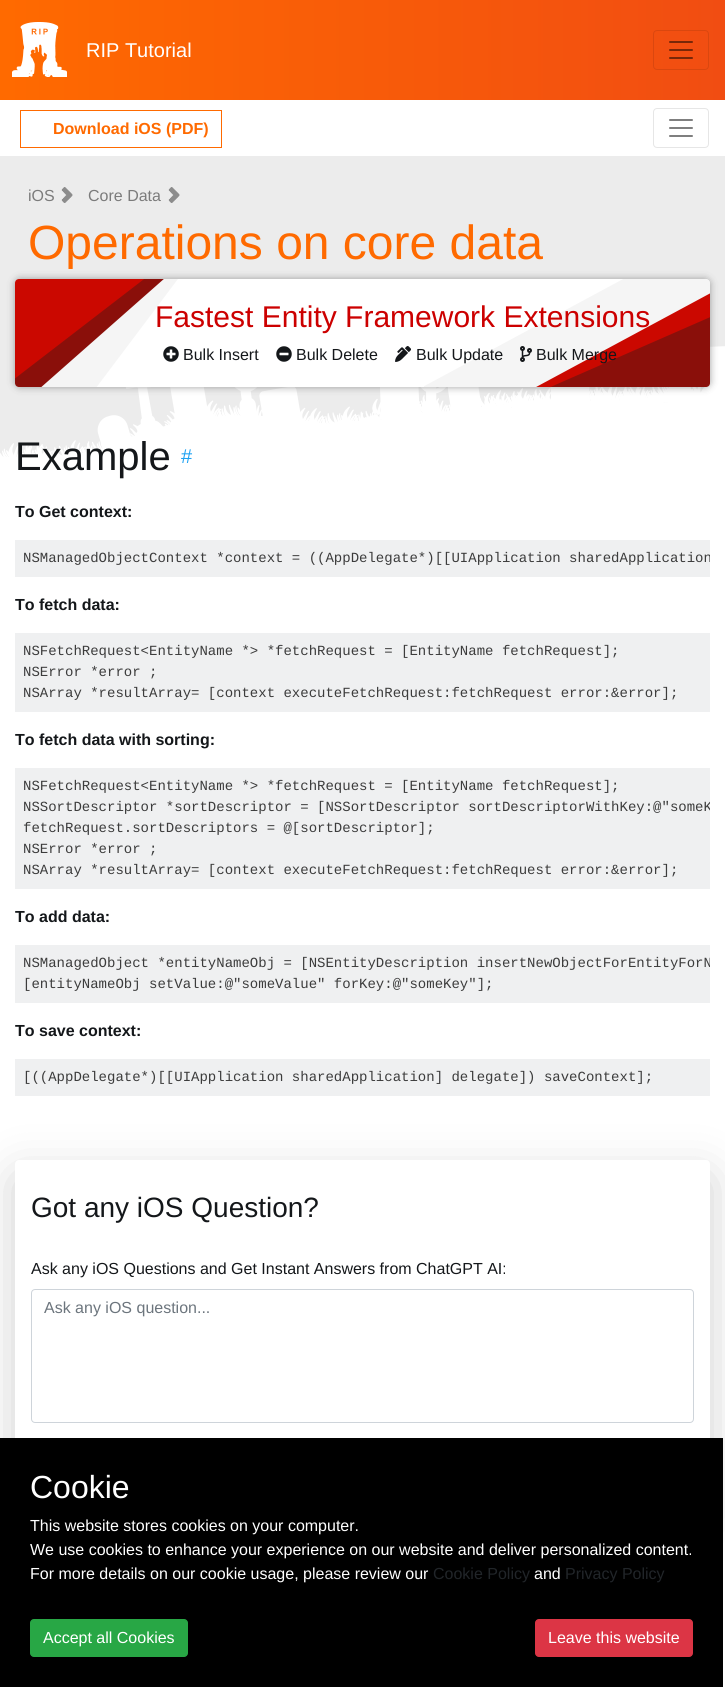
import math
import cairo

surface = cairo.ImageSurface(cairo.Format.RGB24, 725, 1687)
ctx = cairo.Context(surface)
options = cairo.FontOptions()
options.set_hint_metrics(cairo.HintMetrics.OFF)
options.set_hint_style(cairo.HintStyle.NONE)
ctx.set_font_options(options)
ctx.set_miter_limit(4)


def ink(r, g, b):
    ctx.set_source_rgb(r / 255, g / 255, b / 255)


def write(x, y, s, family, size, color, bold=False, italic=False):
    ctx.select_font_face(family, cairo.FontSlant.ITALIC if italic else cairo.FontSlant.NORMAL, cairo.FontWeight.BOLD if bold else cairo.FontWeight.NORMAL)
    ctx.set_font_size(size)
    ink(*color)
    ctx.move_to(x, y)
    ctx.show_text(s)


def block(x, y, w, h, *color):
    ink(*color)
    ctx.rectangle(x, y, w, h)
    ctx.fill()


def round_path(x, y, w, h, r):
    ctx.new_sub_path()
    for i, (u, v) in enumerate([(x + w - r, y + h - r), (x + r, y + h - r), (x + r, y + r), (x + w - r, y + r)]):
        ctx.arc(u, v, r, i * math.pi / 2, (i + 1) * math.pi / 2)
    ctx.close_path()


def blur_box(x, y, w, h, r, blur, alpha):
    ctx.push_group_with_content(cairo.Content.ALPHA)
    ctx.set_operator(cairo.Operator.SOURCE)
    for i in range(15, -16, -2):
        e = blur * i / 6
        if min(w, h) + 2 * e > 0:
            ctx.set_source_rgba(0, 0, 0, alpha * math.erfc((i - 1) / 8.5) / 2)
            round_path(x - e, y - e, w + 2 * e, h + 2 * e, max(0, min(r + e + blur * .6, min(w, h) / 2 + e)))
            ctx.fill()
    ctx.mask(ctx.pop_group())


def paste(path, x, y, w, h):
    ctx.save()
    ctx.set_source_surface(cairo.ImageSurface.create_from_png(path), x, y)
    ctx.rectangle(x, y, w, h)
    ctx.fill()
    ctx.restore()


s1 = dict(family="Liberation Sans", size=20, color=(255, 255, 255))
s2 = dict(family="Liberation Sans", size=16, color=(255, 106, 0), bold=True)
s3 = dict(family="Liberation Sans", size=16, color=(123, 123, 123))
s4 = dict(family="Liberation Sans", size=48, color=(255, 106, 0))
s5 = dict(family="Liberation Sans", size=30, color=(204, 0, 0))
s6 = dict(family="Liberation Sans", size=16, color=(20, 23, 26))
s7 = dict(family="Liberation Sans", size=40, color=(20, 23, 26))
s8 = dict(family="Liberation Sans", size=20, color=(29, 161, 242))
s9 = dict(family="Liberation Sans", size=16, color=(20, 23, 26), bold=True)
s10 = dict(family="Liberation Mono", size=14, color=(60, 60, 60))
s11 = dict(family="Liberation Sans", size=28, color=(20, 23, 26))
s12 = dict(family="Liberation Sans", size=16, color=(108, 117, 125))
s13 = dict(family="Liberation Sans", size=32, color=(255, 255, 255))
s14 = dict(family="Liberation Sans", size=16, color=(255, 255, 255))
s15 = dict(family="Liberation Sans", size=16, color=(33, 37, 41))

ink(255, 255, 255)
ctx.paint()
gradient = cairo.LinearGradient(0, 50, 725, 50)
gradient.add_color_stop_rgba(0, 1, 0.416, 0, 1)
gradient.add_color_stop_rgba(1, 0.945, 0.302, 0.071, 1)
ctx.set_source(gradient)
ctx.rectangle(0, 0, 725, 100)
ctx.fill()
paste("pic1.png", 12, 22, 55, 55)
write(86, 57, "RIP Tutorial", **s1)
round_path(653.5, 30.5, 55, 39, 3.5)
ink(218, 71, 15)
ctx.set_line_width(1)
ctx.stroke()
paste("pic2.png", 669, 41, 24, 18)
ctx.rectangle(20.5, 110.5, 201, 37)
ink(255, 106, 0)
ctx.stroke()
write(53, 134, "Download iOS (PDF)", **s2)
round_path(653.5, 108.5, 55, 39, 3.5)
ink(230, 230, 230)
ctx.stroke()
paste("pic3.png", 669, 119, 24, 18)
block(0, 156, 725, 303, 236, 236, 236)
paste("pic4.png", 0, 346, 725, 115)
write(28, 201, "iOS", **s3)
paste("pic5.png", 61, 187, 12, 16)
write(88, 201, "Core Data", **s3)
paste("pic5.png", 168, 187, 12, 16)
write(28, 259, "Operations on core data", **s4)
ink(128, 128, 128)
blur_box(15, 279, 695, 108, 5, 4, 0.75)
ink(255, 255, 255)
round_path(15, 279, 695, 108, 5)
ctx.fill()
paste("pic6.png", 15, 279, 163, 108)
paste("pic7.png", 424, 279, 286, 108)
write(155, 327, "Fastest Entity Framework Extensions", **s5)
paste("pic8.png", 163, 346, 16, 16)
write(183, 360, "Bulk Insert", **s6)
paste("pic9.png", 276, 346, 16, 16)
write(296, 360, "Bulk Delete", **s6)
paste("pic10.png", 395, 346, 16, 16)
write(416, 360, "Bulk Update", **s6)
paste("pic11.png", 520, 346, 12, 16)
write(536, 360, "Bulk Merge", **s6)
write(15, 470, "Example", **s7)
write(181, 463, "#", **s8)
write(15, 517, "To Get context:", **s9)
block(15, 540, 695, 37, 239, 240, 241)
ctx.save()
ctx.rectangle(15, 540, 695, 37)
ctx.clip()
write(23, 562, "NSManagedObjectContext *context = ((AppDelegate*)[[UIApplication sharedApplication", **s10)
ctx.restore()
write(15, 610, "To fetch data:", **s9)
block(15, 633, 695, 79, 239, 240, 241)
write(23, 655, "NSFetchRequest<EntityName *> *fetchRequest = [EntityName fetchRequest];", **s10)
write(23, 676, "NSError *error ;", **s10)
write(23, 697, "NSArray *resultArray= [context executeFetchRequest:fetchRequest error:&error];", **s10)
write(15, 745, "To fetch data with sorting:", **s9)
block(15, 768, 695, 121, 239, 240, 241)
write(23, 790, "NSFetchRequest<EntityName *> *fetchRequest = [EntityName fetchRequest];", **s10)
ctx.save()
ctx.rectangle(15, 768, 695, 121)
ctx.clip()
write(23, 811, "NSSortDescriptor *sortDescriptor = [NSSortDescriptor sortDescriptorWithKey:@\"someK", **s10)
ctx.restore()
write(23, 832, "fetchRequest.sortDescriptors = @[sortDescriptor];", **s10)
write(23, 853, "NSError *error ;", **s10)
write(23, 874, "NSArray *resultArray= [context executeFetchRequest:fetchRequest error:&error];", **s10)
write(15, 922, "To add data:", **s9)
block(15, 945, 695, 58, 239, 240, 241)
ctx.save()
ctx.rectangle(15, 945, 695, 58)
ctx.clip()
write(23, 967, "NSManagedObject *entityNameObj = [NSEntityDescription insertNewObjectForEntityForN", **s10)
ctx.restore()
write(23, 988, "[entityNameObj setValue:@\"someValue\" forKey:@\"someKey\"];", **s10)
write(15, 1036, "To save context:", **s9)
block(15, 1059, 695, 37, 239, 240, 241)
write(23, 1081, "[((AppDelegate*)[[UIApplication sharedApplication] delegate]) saveContext];", **s10)
ink(0, 0, 0)
blur_box(15, 1176, 695, 341, 4, 24, 0.18)
ink(255, 255, 255)
round_path(15, 1160, 695, 341, 4)
ctx.fill()
write(31, 1217, "Got any iOS Question?", **s11)
write(31, 1274, "Ask any iOS Questions and Get Instant Answers from ChatGPT AI:", **s6)
round_path(31.5, 1289.5, 662, 133, 3.5)
ink(206, 212, 218)
ctx.stroke()
write(44, 1313, "Ask any iOS question...", **s12)
block(0, 1438, 723, 249, 0, 0, 0)
write(30, 1498, "Cookie", **s13)
write(30, 1531, "This website stores cookies on your computer.", **s14)
write(30, 1555, "We use cookies to enhance your experience on our website and deliver personalized content.", **s14)
write(30, 1579, "For more details on our cookie usage, please review our", **s14)
write(433, 1579, "Cookie Policy", **s15)
write(534, 1579, "and", **s14)
write(565, 1579, "Privacy Policy", **s15)
ink(40, 167, 69)
round_path(30.5, 1619.5, 157, 37, 3.5)
ctx.fill_preserve()
ctx.stroke()
write(43, 1643, "Accept all Cookies", **s14)
ink(220, 53, 69)
round_path(535.5, 1619.5, 157, 37, 3.5)
ctx.fill_preserve()
ctx.stroke()
write(548, 1643, "Leave this website", **s14)
surface.write_to_png("screenshot.png")
